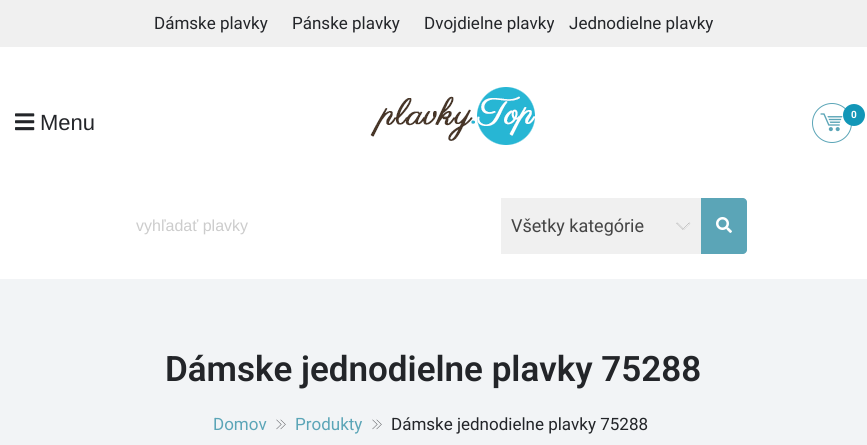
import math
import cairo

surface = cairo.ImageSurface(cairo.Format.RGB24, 867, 445)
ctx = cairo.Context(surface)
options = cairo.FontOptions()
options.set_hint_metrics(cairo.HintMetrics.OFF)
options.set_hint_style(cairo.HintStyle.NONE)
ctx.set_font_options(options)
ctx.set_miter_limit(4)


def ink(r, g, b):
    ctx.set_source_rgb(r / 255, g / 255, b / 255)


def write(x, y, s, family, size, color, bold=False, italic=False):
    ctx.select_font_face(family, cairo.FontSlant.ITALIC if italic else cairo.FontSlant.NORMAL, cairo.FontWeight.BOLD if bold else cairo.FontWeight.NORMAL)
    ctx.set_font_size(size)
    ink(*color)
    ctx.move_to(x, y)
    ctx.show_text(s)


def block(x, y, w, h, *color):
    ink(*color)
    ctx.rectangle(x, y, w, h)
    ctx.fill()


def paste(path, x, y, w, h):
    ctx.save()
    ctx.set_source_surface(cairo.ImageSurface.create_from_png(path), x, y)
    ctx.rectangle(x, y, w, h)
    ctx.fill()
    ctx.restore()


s1 = dict(family="Roboto", size=17, color=(35, 37, 41))
s2 = dict(family="Liberation Sans", size=22, color=(35, 37, 41))
s3 = dict(family="Roboto", size=10, color=(255, 255, 255), bold=True)
s4 = dict(family="Liberation Sans", size=16, color=(204, 204, 204))
s5 = dict(family="Roboto", size=18, color=(68, 68, 68))
s6 = dict(family="Roboto SemiBold", size=35, color=(35, 37, 41))
s7 = dict(family="Roboto", size=17, color=(91, 165, 183))

ink(255, 255, 255)
ctx.paint()
block(0, 0, 867, 47, 240, 240, 240)
write(154, 29, "Dámske plavky", **s1)
write(292, 29, "Pánske plavky", **s1)
write(424, 29, "Dvojdielne plavky", **s1)
write(569, 29, "Jednodielne plavky", **s1)
paste("pic1.png", 15, 113, 20, 18)
write(40, 130, "Menu", **s2)
paste("pic2.png", 370, 87, 165, 58)
ctx.arc(832, 123, 19.5, 0, 2 * math.pi)
ink(91, 165, 183)
ctx.set_line_width(1)
ctx.stroke()
paste("pic3.png", 820, 113, 23, 19)
ink(18, 150, 183)
ctx.arc(854, 115, 11, 0, 2 * math.pi)
ctx.fill()
write(851, 118, "0", **s3)
write(136, 231, "vyhľadať plavky", **s4)
block(501, 198, 200, 56, 240, 240, 240)
write(511, 232, "Všetky kategórie", **s5)
paste("pic4.png", 676, 222, 15, 8)
ink(91, 165, 183)
ctx.new_path()
ctx.move_to(701, 198)
ctx.line_to(743, 198)
ctx.curve_to(745, 198, 747, 200, 747, 202)
ctx.line_to(747, 250)
ctx.curve_to(747, 252, 745, 254, 743, 254)
ctx.line_to(701, 254)
ctx.close_path()
ctx.fill()
paste("pic5.png", 716, 217, 16, 16)
block(0, 279, 867, 166, 242, 244, 246)
write(165, 381, "Dámske jednodielne plavky 75288", **s6)
write(213, 430, "Domov", **s7)
paste("pic6.png", 276, 419, 10, 11)
write(295, 430, "Produkty", **s7)
paste("pic6.png", 372, 419, 10, 11)
write(391, 430, "Dámske jednodielne plavky 75288", **s1)
surface.write_to_png("screenshot.png")
